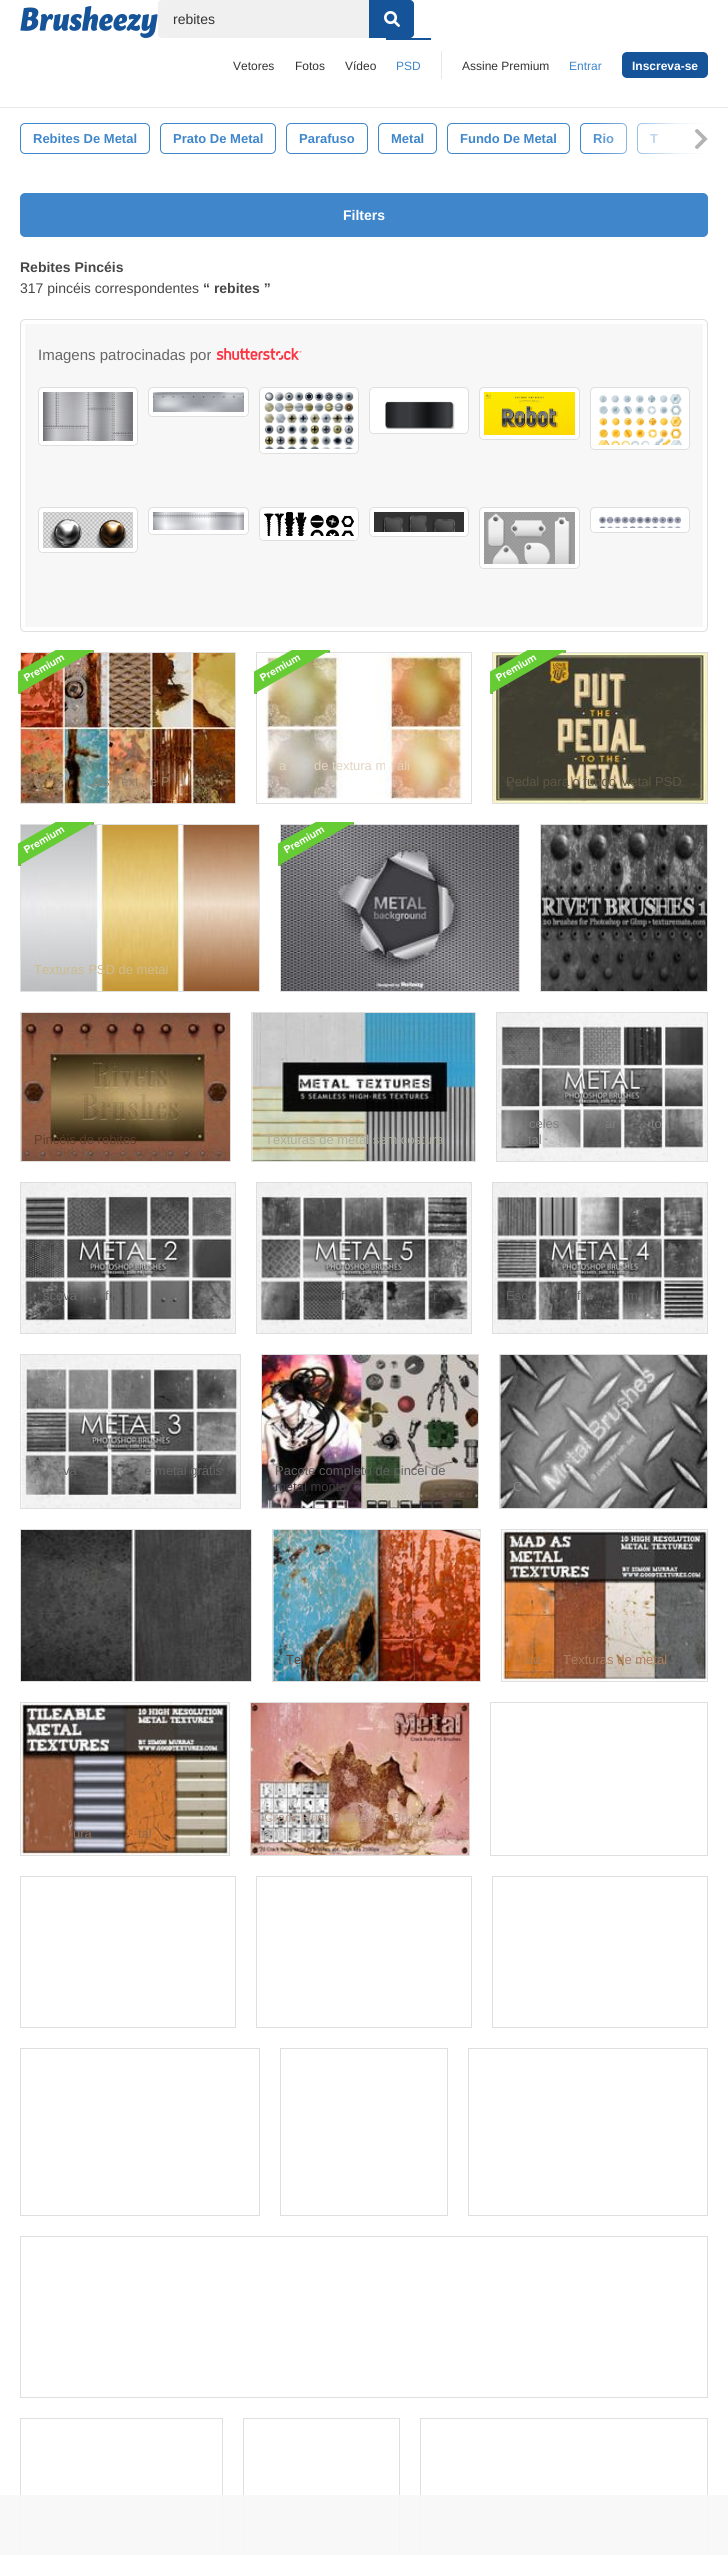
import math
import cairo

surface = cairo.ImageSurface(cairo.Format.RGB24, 728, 2555)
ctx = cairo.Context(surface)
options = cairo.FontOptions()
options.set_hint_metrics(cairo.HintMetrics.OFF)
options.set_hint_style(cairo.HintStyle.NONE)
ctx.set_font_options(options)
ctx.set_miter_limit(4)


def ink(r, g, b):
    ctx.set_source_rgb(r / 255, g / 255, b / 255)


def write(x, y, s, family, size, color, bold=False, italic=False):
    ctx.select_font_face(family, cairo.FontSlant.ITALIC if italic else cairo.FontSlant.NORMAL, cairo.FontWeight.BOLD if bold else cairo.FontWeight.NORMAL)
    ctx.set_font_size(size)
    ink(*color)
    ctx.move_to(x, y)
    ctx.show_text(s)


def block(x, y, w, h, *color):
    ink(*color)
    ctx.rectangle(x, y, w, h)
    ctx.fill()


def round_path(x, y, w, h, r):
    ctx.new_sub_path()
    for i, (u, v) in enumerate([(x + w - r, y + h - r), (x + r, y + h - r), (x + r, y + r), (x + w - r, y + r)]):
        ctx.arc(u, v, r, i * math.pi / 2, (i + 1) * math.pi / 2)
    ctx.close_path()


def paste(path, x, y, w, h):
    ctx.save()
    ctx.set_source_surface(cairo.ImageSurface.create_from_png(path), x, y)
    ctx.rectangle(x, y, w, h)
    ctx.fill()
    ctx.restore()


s1 = dict(family="Liberation Sans", size=14, color=(51, 51, 51))
s2 = dict(family="Liberation Sans", size=12, color=(51, 51, 51))
s3 = dict(family="Liberation Sans", size=12, color=(63, 134, 202))
s4 = dict(family="Liberation Sans", size=12, color=(255, 255, 255), bold=True)
s5 = dict(family="Liberation Sans", size=13, color=(63, 134, 202), bold=True)
s6 = dict(family="Liberation Sans", size=14, color=(255, 255, 255), bold=True)
s7 = dict(family="Liberation Sans", size=14, color=(71, 71, 71), bold=True)
s8 = dict(family="Liberation Sans", size=14, color=(71, 71, 71))
s9 = dict(family="Liberation Sans", size=15, color=(102, 102, 102))
s10 = dict(family="Liberation Sans", size=13, color=(225, 212, 195))
s11 = dict(family="Liberation Sans", size=13, color=(146, 128, 105))
s12 = dict(family="Liberation Sans", size=13, color=(93, 87, 68))
s13 = dict(family="Liberation Sans", size=13, color=(206, 187, 142))
s14 = dict(family="Liberation Sans", size=13, color=(95, 62, 41))
s15 = dict(family="Liberation Sans", size=13, color=(173, 174, 156))
s16 = dict(family="Liberation Sans", size=13, color=(129, 129, 129))
s17 = dict(family="Liberation Sans", size=13, color=(108, 108, 108))
s18 = dict(family="Liberation Sans", size=13, color=(96, 96, 96))
s19 = dict(family="Liberation Sans", size=13, color=(102, 102, 102))
s20 = dict(family="Liberation Sans", size=13, color=(63, 56, 60))
s21 = dict(family="Liberation Sans", size=13, color=(138, 138, 138))
s22 = dict(family="Liberation Sans", size=13, color=(173, 125, 91))
s23 = dict(family="Liberation Sans", size=13, color=(143, 105, 78))
s24 = dict(family="Liberation Sans", size=13, color=(189, 161, 144))
s25 = dict(family="Liberation Sans", size=13, color=(186, 186, 186))

ink(255, 255, 255)
ctx.paint()
block(0, 107, 728, 1, 232, 232, 232)
paste("pic1.png", 20, 6, 138, 32)
ink(240, 240, 240)
round_path(158, 0, 256, 38, 4)
ctx.fill()
write(173, 24, "rebites", **s1)
ink(21, 84, 153)
ctx.new_path()
ctx.move_to(369, 0)
ctx.line_to(410, 0)
ctx.curve_to(412, 0, 414, 2, 414, 4)
ctx.line_to(414, 34)
ctx.curve_to(414, 36, 412, 38, 410, 38)
ctx.line_to(369, 38)
ctx.close_path()
ctx.fill()
paste("pic2.png", 384, 11, 16, 16)
write(233, 70, "Vetores", **s2)
write(295, 70, "Fotos", **s2)
write(345, 70, "Vídeo", **s2)
block(386, 38, 45, 2, 21, 84, 153)
write(396, 70, "PSD", **s3)
block(441, 51, 1, 28, 232, 232, 232)
write(462, 70, "Assine Premium", **s2)
write(569, 70, "Entrar", **s3)
ink(21, 84, 153)
round_path(622, 52, 86, 26, 5)
ctx.fill()
write(632, 70, "Inscreva-se", **s4)
round_path(580.5, 123.5, 46, 30, 4.5)
ink(63, 134, 202)
ctx.set_line_width(1)
ctx.stroke()
write(593, 143, "Rio", **s5)
ctx.save()
ctx.rectangle(20, 123, 688, 44)
ctx.clip()
round_path(637.5, 123.5, 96, 30, 4.5)
ctx.stroke()
ctx.restore()
write(650, 143, "T", **s5)
gradient = cairo.LinearGradient(588, 139, 708, 139)
gradient.add_color_stop_rgba(0, 1, 1, 1, 0)
gradient.add_color_stop_rgba(0.75, 1, 1, 1, 0.9)
gradient.add_color_stop_rgba(1, 1, 1, 1, 1)
ctx.set_source(gradient)
ctx.rectangle(590, 123, 118, 31)
ctx.fill()
paste("pic3.png", 695, 129, 13, 20)
round_path(20.5, 123.5, 129, 30, 4.5)
ink(63, 134, 202)
ctx.stroke()
write(33, 143, "Rebites De Metal", **s5)
round_path(160.5, 123.5, 115, 30, 4.5)
ctx.stroke()
write(173, 143, "Prato De Metal", **s5)
round_path(286.5, 123.5, 81, 30, 4.5)
ctx.stroke()
write(299, 143, "Parafuso", **s5)
round_path(378.5, 123.5, 58, 30, 4.5)
ctx.stroke()
write(391, 143, "Metal", **s5)
round_path(447.5, 123.5, 122, 30, 4.5)
ctx.stroke()
write(460, 143, "Fundo De Metal", **s5)
round_path(20, 193, 688, 44, 5)
ctx.fill()
write(343, 220, "Filters", **s6)
write(20, 272, "Rebites Pincéis", **s7)
write(20, 293, "317 pincéis correspondentes", **s8)
write(203, 293, "“ rebites ”", **s7)
round_path(20.5, 319.5, 687, 312, 4.5)
ink(223, 223, 223)
ctx.stroke()
block(25, 324, 678, 303, 247, 247, 247)
write(38, 360, "Imagens patrocinadas por", **s9)
paste("pic4.png", 216, 348, 86, 12)
ink(255, 255, 255)
round_path(38.5, 387.5, 99, 58, 4.5)
ctx.fill_preserve()
ink(223, 223, 223)
ctx.stroke()
paste("pic5.png", 43, 392, 90, 49)
ink(255, 255, 255)
ctx.new_path()
ctx.move_to(39, 441)
ctx.line_to(137, 441)
ctx.curve_to(137, 443, 135, 445, 133, 445)
ctx.line_to(43, 445)
ctx.curve_to(41, 445, 39, 443, 39, 441)
ctx.close_path()
ctx.fill()
round_path(148.5, 387.5, 100, 29, 4.5)
ctx.fill_preserve()
ink(223, 223, 223)
ctx.stroke()
paste("pic6.png", 153, 392, 91, 20)
ink(255, 255, 255)
ctx.new_path()
ctx.move_to(149, 412)
ctx.line_to(248, 412)
ctx.curve_to(248, 414, 246, 416, 244, 416)
ctx.line_to(153, 416)
ctx.curve_to(151, 416, 149, 414, 149, 412)
ctx.close_path()
ctx.fill()
round_path(259.5, 387.5, 99, 66, 4.5)
ctx.fill_preserve()
ink(223, 223, 223)
ctx.stroke()
paste("pic7.png", 264, 392, 90, 57)
ink(255, 255, 255)
ctx.new_path()
ctx.move_to(260, 449)
ctx.line_to(358, 449)
ctx.curve_to(358, 451, 356, 453, 354, 453)
ctx.line_to(264, 453)
ctx.curve_to(262, 453, 260, 451, 260, 449)
ctx.close_path()
ctx.fill()
round_path(369.5, 387.5, 99, 46, 4.5)
ctx.fill_preserve()
ink(223, 223, 223)
ctx.stroke()
paste("pic8.png", 385, 401, 70, 28)
ink(255, 255, 255)
ctx.new_path()
ctx.move_to(370, 429)
ctx.line_to(468, 429)
ctx.curve_to(468, 431, 466, 433, 464, 433)
ctx.line_to(374, 433)
ctx.curve_to(372, 433, 370, 431, 370, 429)
ctx.close_path()
ctx.fill()
round_path(479.5, 387.5, 100, 52, 4.5)
ctx.fill_preserve()
ink(223, 223, 223)
ctx.stroke()
paste("pic9.png", 484, 392, 91, 43)
ink(255, 255, 255)
ctx.new_path()
ctx.move_to(480, 435)
ctx.line_to(579, 435)
ctx.curve_to(579, 437, 577, 439, 575, 439)
ctx.line_to(484, 439)
ctx.curve_to(482, 439, 480, 437, 480, 435)
ctx.close_path()
ctx.fill()
round_path(590.5, 387.5, 99, 62, 4.5)
ctx.fill_preserve()
ink(223, 223, 223)
ctx.stroke()
paste("pic10.png", 597, 394, 86, 51)
ink(255, 255, 255)
ctx.new_path()
ctx.move_to(591, 445)
ctx.line_to(689, 445)
ctx.curve_to(689, 447, 687, 449, 685, 449)
ctx.line_to(595, 449)
ctx.curve_to(593, 449, 591, 447, 591, 445)
ctx.close_path()
ctx.fill()
round_path(38.5, 507.5, 99, 45, 4.5)
ctx.fill_preserve()
ink(223, 223, 223)
ctx.stroke()
paste("pic11.png", 43, 512, 90, 36)
ink(255, 255, 255)
ctx.new_path()
ctx.move_to(39, 548)
ctx.line_to(137, 548)
ctx.curve_to(137, 550, 135, 552, 133, 552)
ctx.line_to(43, 552)
ctx.curve_to(41, 552, 39, 550, 39, 548)
ctx.close_path()
ctx.fill()
round_path(148.5, 507.5, 100, 27, 4.5)
ctx.fill_preserve()
ink(223, 223, 223)
ctx.stroke()
paste("pic12.png", 153, 512, 91, 18)
ink(255, 255, 255)
ctx.new_path()
ctx.move_to(149, 530)
ctx.line_to(248, 530)
ctx.curve_to(248, 532, 246, 534, 244, 534)
ctx.line_to(153, 534)
ctx.curve_to(151, 534, 149, 532, 149, 530)
ctx.close_path()
ctx.fill()
round_path(259.5, 507.5, 99, 33, 4.5)
ctx.fill_preserve()
ink(223, 223, 223)
ctx.stroke()
paste("pic13.png", 264, 512, 90, 24)
ink(255, 255, 255)
ctx.new_path()
ctx.move_to(260, 536)
ctx.line_to(358, 536)
ctx.curve_to(358, 538, 356, 540, 354, 540)
ctx.line_to(264, 540)
ctx.curve_to(262, 540, 260, 538, 260, 536)
ctx.close_path()
ctx.fill()
round_path(369.5, 507.5, 99, 29, 4.5)
ctx.fill_preserve()
ink(223, 223, 223)
ctx.stroke()
paste("pic14.png", 374, 512, 90, 20)
ink(255, 255, 255)
ctx.new_path()
ctx.move_to(370, 532)
ctx.line_to(468, 532)
ctx.curve_to(468, 534, 466, 536, 464, 536)
ctx.line_to(374, 536)
ctx.curve_to(372, 536, 370, 534, 370, 532)
ctx.close_path()
ctx.fill()
round_path(479.5, 507.5, 100, 61, 4.5)
ctx.fill_preserve()
ink(223, 223, 223)
ctx.stroke()
paste("pic15.png", 484, 512, 91, 52)
ink(255, 255, 255)
ctx.new_path()
ctx.move_to(480, 564)
ctx.line_to(579, 564)
ctx.curve_to(579, 566, 577, 568, 575, 568)
ctx.line_to(484, 568)
ctx.curve_to(482, 568, 480, 566, 480, 564)
ctx.close_path()
ctx.fill()
round_path(590.5, 507.5, 99, 25, 4.5)
ctx.fill_preserve()
ink(223, 223, 223)
ctx.stroke()
paste("pic16.png", 599, 516, 83, 12)
ink(255, 255, 255)
ctx.new_path()
ctx.move_to(591, 528)
ctx.line_to(689, 528)
ctx.curve_to(689, 530, 687, 532, 685, 532)
ctx.line_to(595, 532)
ctx.curve_to(593, 532, 591, 530, 591, 528)
ctx.close_path()
ctx.fill()
ctx.rectangle(256.5, 652.5, 215, 151)
ink(223, 223, 223)
ctx.stroke()
paste("pic18.png", 265, 653, 198, 148)
paste("pic17.png", 254, 650, 76, 44)
write(279, 770, "a", **s10)
write(314, 770, "de textura m", **s10)
write(397, 770, "áli", **s10)
ctx.rectangle(20.5, 652.5, 215, 151)
ink(223, 223, 223)
ctx.stroke()
paste("pic20.png", 21, 653, 214, 150)
paste("pic19.png", 18, 650, 76, 44)
write(93, 786, "als Text", **s11)
write(150, 786, "e P", **s11)
ctx.rectangle(492.5, 652.5, 215, 151)
ink(223, 223, 223)
ctx.stroke()
paste("pic22.png", 493, 653, 214, 150)
paste("pic21.png", 490, 650, 76, 44)
write(506, 786, "Pedal para o fundo Metal PSD", **s12)
ctx.rectangle(20.5, 824.5, 239, 167)
ink(223, 223, 223)
ctx.stroke()
paste("pic24.png", 21, 825, 238, 166)
paste("pic23.png", 18, 822, 76, 44)
write(34, 974, "Texturas PSD de metal", **s13)
ctx.rectangle(280.5, 824.5, 239, 167)
ink(223, 223, 223)
ctx.stroke()
paste("pic26.png", 281, 825, 238, 166)
paste("pic25.png", 278, 822, 76, 44)
ctx.rectangle(540.5, 824.5, 167, 167)
ctx.stroke()
paste("pic27.png", 541, 825, 166, 166)
ctx.rectangle(20.5, 1012.5, 210, 149)
ctx.stroke()
paste("pic28.png", 21, 1013, 209, 148)
write(34, 1144, "Pincéis de rebites", **s14)
ctx.rectangle(251.5, 1012.5, 224, 149)
ink(223, 223, 223)
ctx.stroke()
paste("pic29.png", 252, 1013, 223, 148)
write(265, 1144, "Texturas de metal sem costura", **s15)
ctx.rectangle(496.5, 1012.5, 211, 149)
ink(223, 223, 223)
ctx.stroke()
paste("pic30.png", 497, 1013, 210, 148)
write(529, 1128, "celes", **s16)
write(605, 1128, "ar", **s16)
write(651, 1128, "to", **s16)
write(528, 1144, "tal", **s16)
ctx.rectangle(20.5, 1182.5, 215, 151)
ink(223, 223, 223)
ctx.stroke()
paste("pic31.png", 21, 1183, 214, 150)
write(43, 1300, "scova", **s17)
write(105, 1300, "f", **s17)
ctx.rectangle(256.5, 1182.5, 215, 151)
ink(223, 223, 223)
ctx.stroke()
paste("pic32.png", 257, 1183, 214, 150)
write(292, 1300, "o", **s18)
write(341, 1300, "f", **s18)
write(373, 1300, "d", **s18)
write(433, 1300, "r", **s18)
ctx.rectangle(492.5, 1182.5, 215, 151)
ink(223, 223, 223)
ctx.stroke()
paste("pic33.png", 493, 1183, 214, 150)
write(506, 1300, "Esc", **s19)
write(577, 1300, "f", **s19)
write(627, 1300, "m", **s19)
write(656, 1300, "l", **s19)
ctx.rectangle(20.5, 1354.5, 220, 154)
ink(223, 223, 223)
ctx.stroke()
paste("pic34.png", 21, 1355, 219, 153)
write(63, 1475, "va", **s19)
write(144, 1475, "e metal grátis", **s19)
ctx.rectangle(261.5, 1354.5, 217, 154)
ink(223, 223, 223)
ctx.stroke()
paste("pic35.png", 262, 1355, 216, 153)
write(275, 1475, "Pacote completo de pincel de", **s18)
write(275, 1491, "metal montar 2", **s20)
ctx.rectangle(499.5, 1354.5, 208, 154)
ink(223, 223, 223)
ctx.stroke()
paste("pic36.png", 500, 1355, 207, 153)
write(513, 1491, "C", **s21)
ctx.rectangle(20.5, 1529.5, 231, 152)
ink(223, 223, 223)
ctx.stroke()
paste("pic37.png", 21, 1530, 230, 151)
ctx.rectangle(272.5, 1529.5, 208, 152)
ctx.stroke()
paste("pic38.png", 273, 1530, 207, 151)
write(286, 1664, "Te", **s14)
ctx.rectangle(501.5, 1529.5, 206, 152)
ink(223, 223, 223)
ctx.stroke()
paste("pic39.png", 502, 1530, 205, 151)
write(526, 1664, "ad", **s22)
write(563, 1664, "Texturas de metal", **s22)
ctx.rectangle(20.5, 1702.5, 209, 153)
ink(223, 223, 223)
ctx.stroke()
paste("pic40.png", 21, 1703, 208, 152)
write(73, 1838, "ura", **s23)
write(138, 1838, "tal", **s23)
ctx.rectangle(250.5, 1702.5, 219, 153)
ink(223, 223, 223)
ctx.stroke()
paste("pic41.png", 251, 1703, 218, 152)
write(264, 1822, "Crack Rusty Metal Ps Brushes", **s24)
write(264, 1838, "abr", **s25)
ctx.rectangle(490.5, 1702.5, 217, 153)
ink(223, 223, 223)
ctx.stroke()
ctx.rectangle(20.5, 1876.5, 215, 151)
ctx.stroke()
ctx.rectangle(256.5, 1876.5, 215, 151)
ctx.stroke()
ctx.rectangle(492.5, 1876.5, 215, 151)
ctx.stroke()
ctx.rectangle(20.5, 2048.5, 239, 167)
ctx.stroke()
ctx.rectangle(280.5, 2048.5, 167, 167)
ctx.stroke()
ctx.rectangle(468.5, 2048.5, 239, 167)
ctx.stroke()
ctx.rectangle(20.5, 2236.5, 687, 161)
ctx.stroke()
ctx.rectangle(20.5, 2418.5, 202, 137)
ctx.stroke()
ctx.rectangle(243.5, 2418.5, 156, 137)
ctx.stroke()
ctx.rectangle(420.5, 2418.5, 287, 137)
ctx.stroke()
ctx.set_source_rgba(0.969, 0.969, 0.969, 0.9)
ctx.rectangle(0, 2495, 728, 60)
ctx.fill()
surface.write_to_png("screenshot.png")
